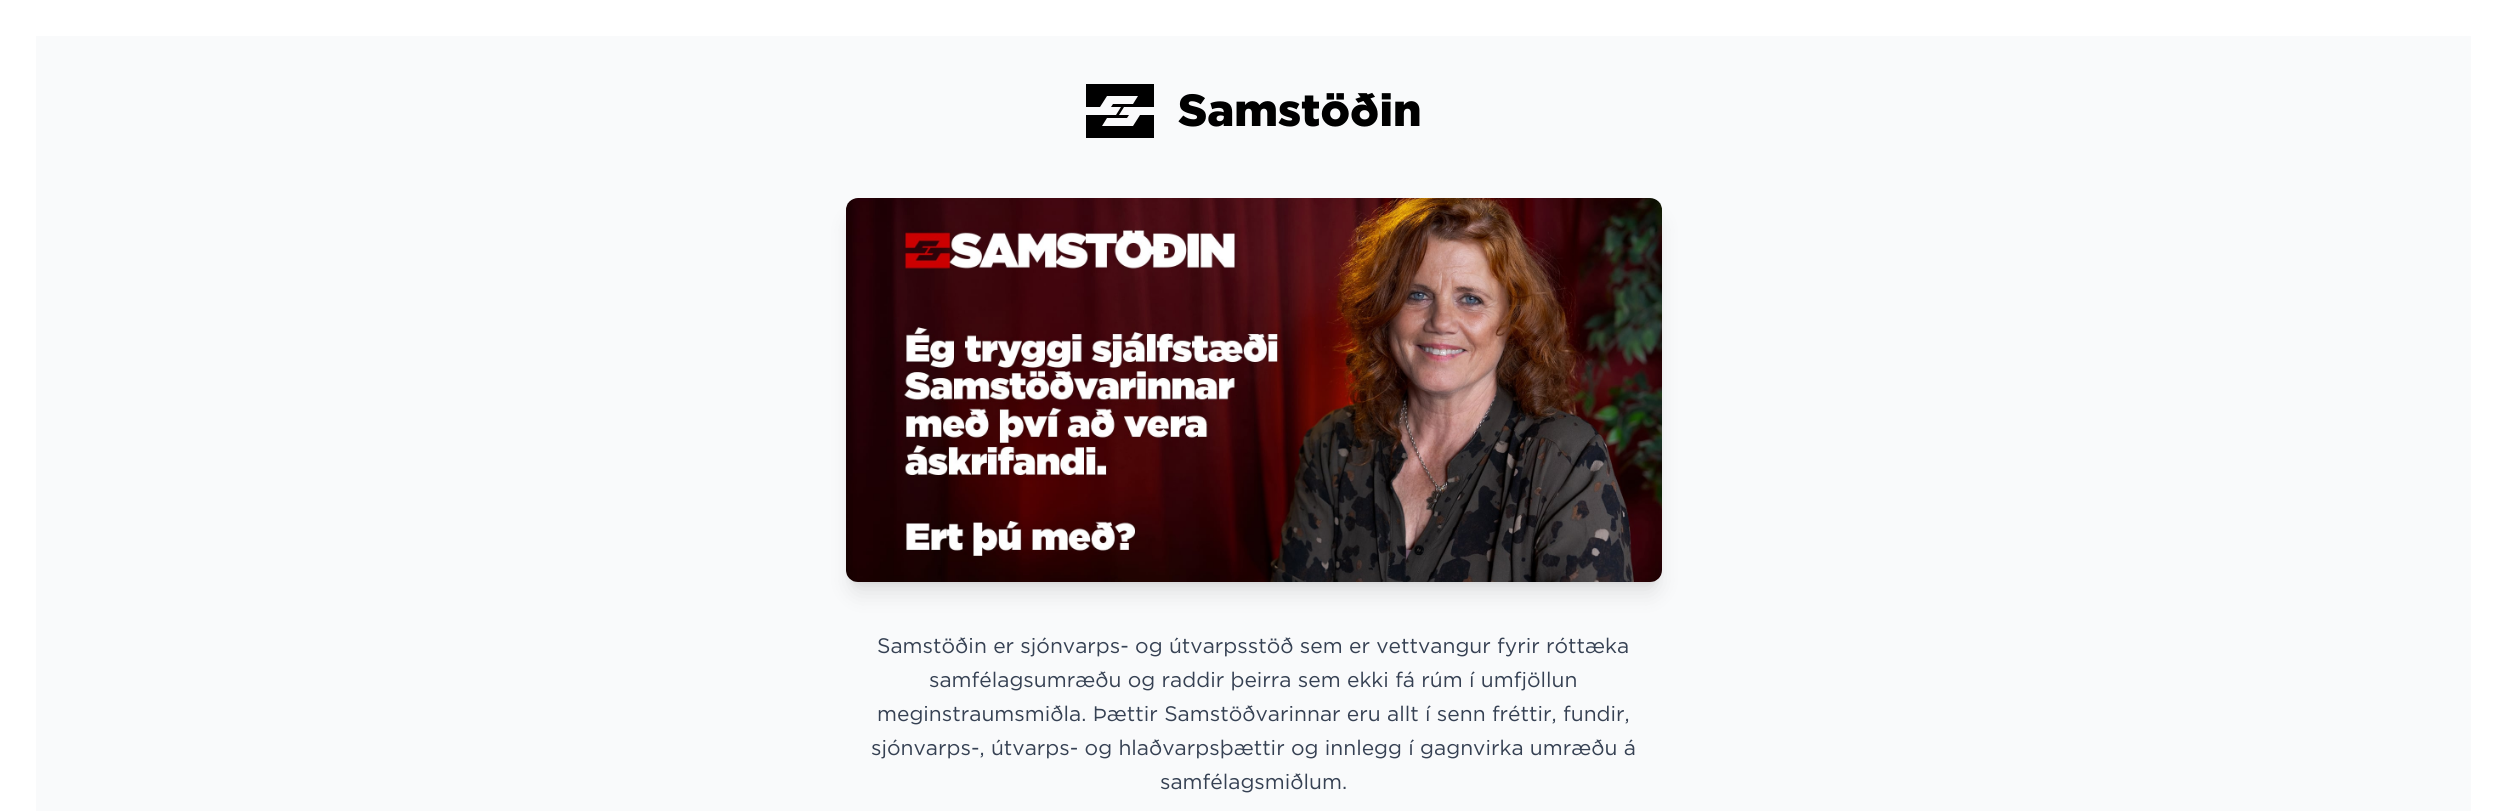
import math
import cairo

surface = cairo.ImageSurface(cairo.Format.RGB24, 2506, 811)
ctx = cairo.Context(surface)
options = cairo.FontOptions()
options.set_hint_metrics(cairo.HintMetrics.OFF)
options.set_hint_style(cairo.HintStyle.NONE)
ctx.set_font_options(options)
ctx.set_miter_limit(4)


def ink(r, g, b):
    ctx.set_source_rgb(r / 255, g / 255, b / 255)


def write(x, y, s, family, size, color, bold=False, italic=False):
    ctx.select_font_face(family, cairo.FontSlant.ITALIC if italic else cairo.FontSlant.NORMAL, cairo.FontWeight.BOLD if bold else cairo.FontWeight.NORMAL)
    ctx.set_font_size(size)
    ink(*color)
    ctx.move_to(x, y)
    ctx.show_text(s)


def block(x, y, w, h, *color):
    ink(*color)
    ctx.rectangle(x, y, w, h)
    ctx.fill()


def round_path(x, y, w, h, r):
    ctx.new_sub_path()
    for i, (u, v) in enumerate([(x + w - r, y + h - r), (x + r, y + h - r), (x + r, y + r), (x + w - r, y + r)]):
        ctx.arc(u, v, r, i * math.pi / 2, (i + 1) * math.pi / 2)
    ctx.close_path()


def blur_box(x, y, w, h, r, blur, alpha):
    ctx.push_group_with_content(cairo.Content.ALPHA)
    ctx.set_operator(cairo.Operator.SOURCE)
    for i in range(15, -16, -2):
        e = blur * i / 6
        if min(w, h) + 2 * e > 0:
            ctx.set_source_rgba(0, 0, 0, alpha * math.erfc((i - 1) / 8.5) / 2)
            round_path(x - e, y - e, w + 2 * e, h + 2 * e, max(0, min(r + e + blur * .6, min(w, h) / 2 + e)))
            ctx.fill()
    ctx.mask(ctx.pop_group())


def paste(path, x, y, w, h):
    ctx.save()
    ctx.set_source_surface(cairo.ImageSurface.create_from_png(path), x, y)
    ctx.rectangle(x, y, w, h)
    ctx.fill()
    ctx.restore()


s1 = dict(family="Gotham Black", size=45, color=(0, 0, 0))
s2 = dict(family="Gotham", size=21, color=(54, 65, 83))

ink(255, 255, 255)
ctx.paint()
block(36, 36, 2435, 775, 249, 250, 251)
ink(0, 0, 0)
ctx.set_fill_rule(cairo.FillRule.EVEN_ODD)
ctx.new_path()
ctx.move_to(1086, 84)
ctx.line_to(1086, 107)
ctx.line_to(1100, 107)
ctx.line_to(1107, 96)
ctx.line_to(1138, 96)
ctx.line_to(1133, 104)
ctx.line_to(1113, 104)
ctx.line_to(1111, 107)
ctx.line_to(1121, 107)
ctx.line_to(1116, 115)
ctx.line_to(1086, 115)
ctx.line_to(1086, 138)
ctx.line_to(1154, 138)
ctx.line_to(1154, 115)
ctx.line_to(1140, 115)
ctx.line_to(1133, 126)
ctx.line_to(1102, 126)
ctx.line_to(1107, 118)
ctx.line_to(1127, 118)
ctx.line_to(1129, 115)
ctx.line_to(1119, 115)
ctx.line_to(1124, 107)
ctx.line_to(1154, 107)
ctx.line_to(1154, 84)
ctx.close_path()
ctx.fill()
write(1178, 126, "Samstöðin", **s1)
ink(0, 0, 0)
blur_box(852, 210, 804, 372, 6, 4.5, 0.1)
blur_box(851, 218, 807, 375, 8, 11, 0.1)
paste("pic1.png", 846, 198, 816, 384)
write(877, 653, "Samstöðin er sjónvarps- og útvarpsstöð sem er vettvangur fyrir róttæka", **s2)
write(929, 687, "samfélagsumræðu og raddir þeirra sem ekki fá rúm í umfjöllun", **s2)
write(877, 721, "meginstraumsmiðla. Þættir Samstöðvarinnar eru allt í senn fréttir, fundir,", **s2)
write(871, 755, "sjónvarps-, útvarps- og hlaðvarpsþættir og innlegg í gagnvirka umræðu á", **s2)
write(1160, 789, "samfélagsmiðlum.", **s2)
surface.write_to_png("screenshot.png")
